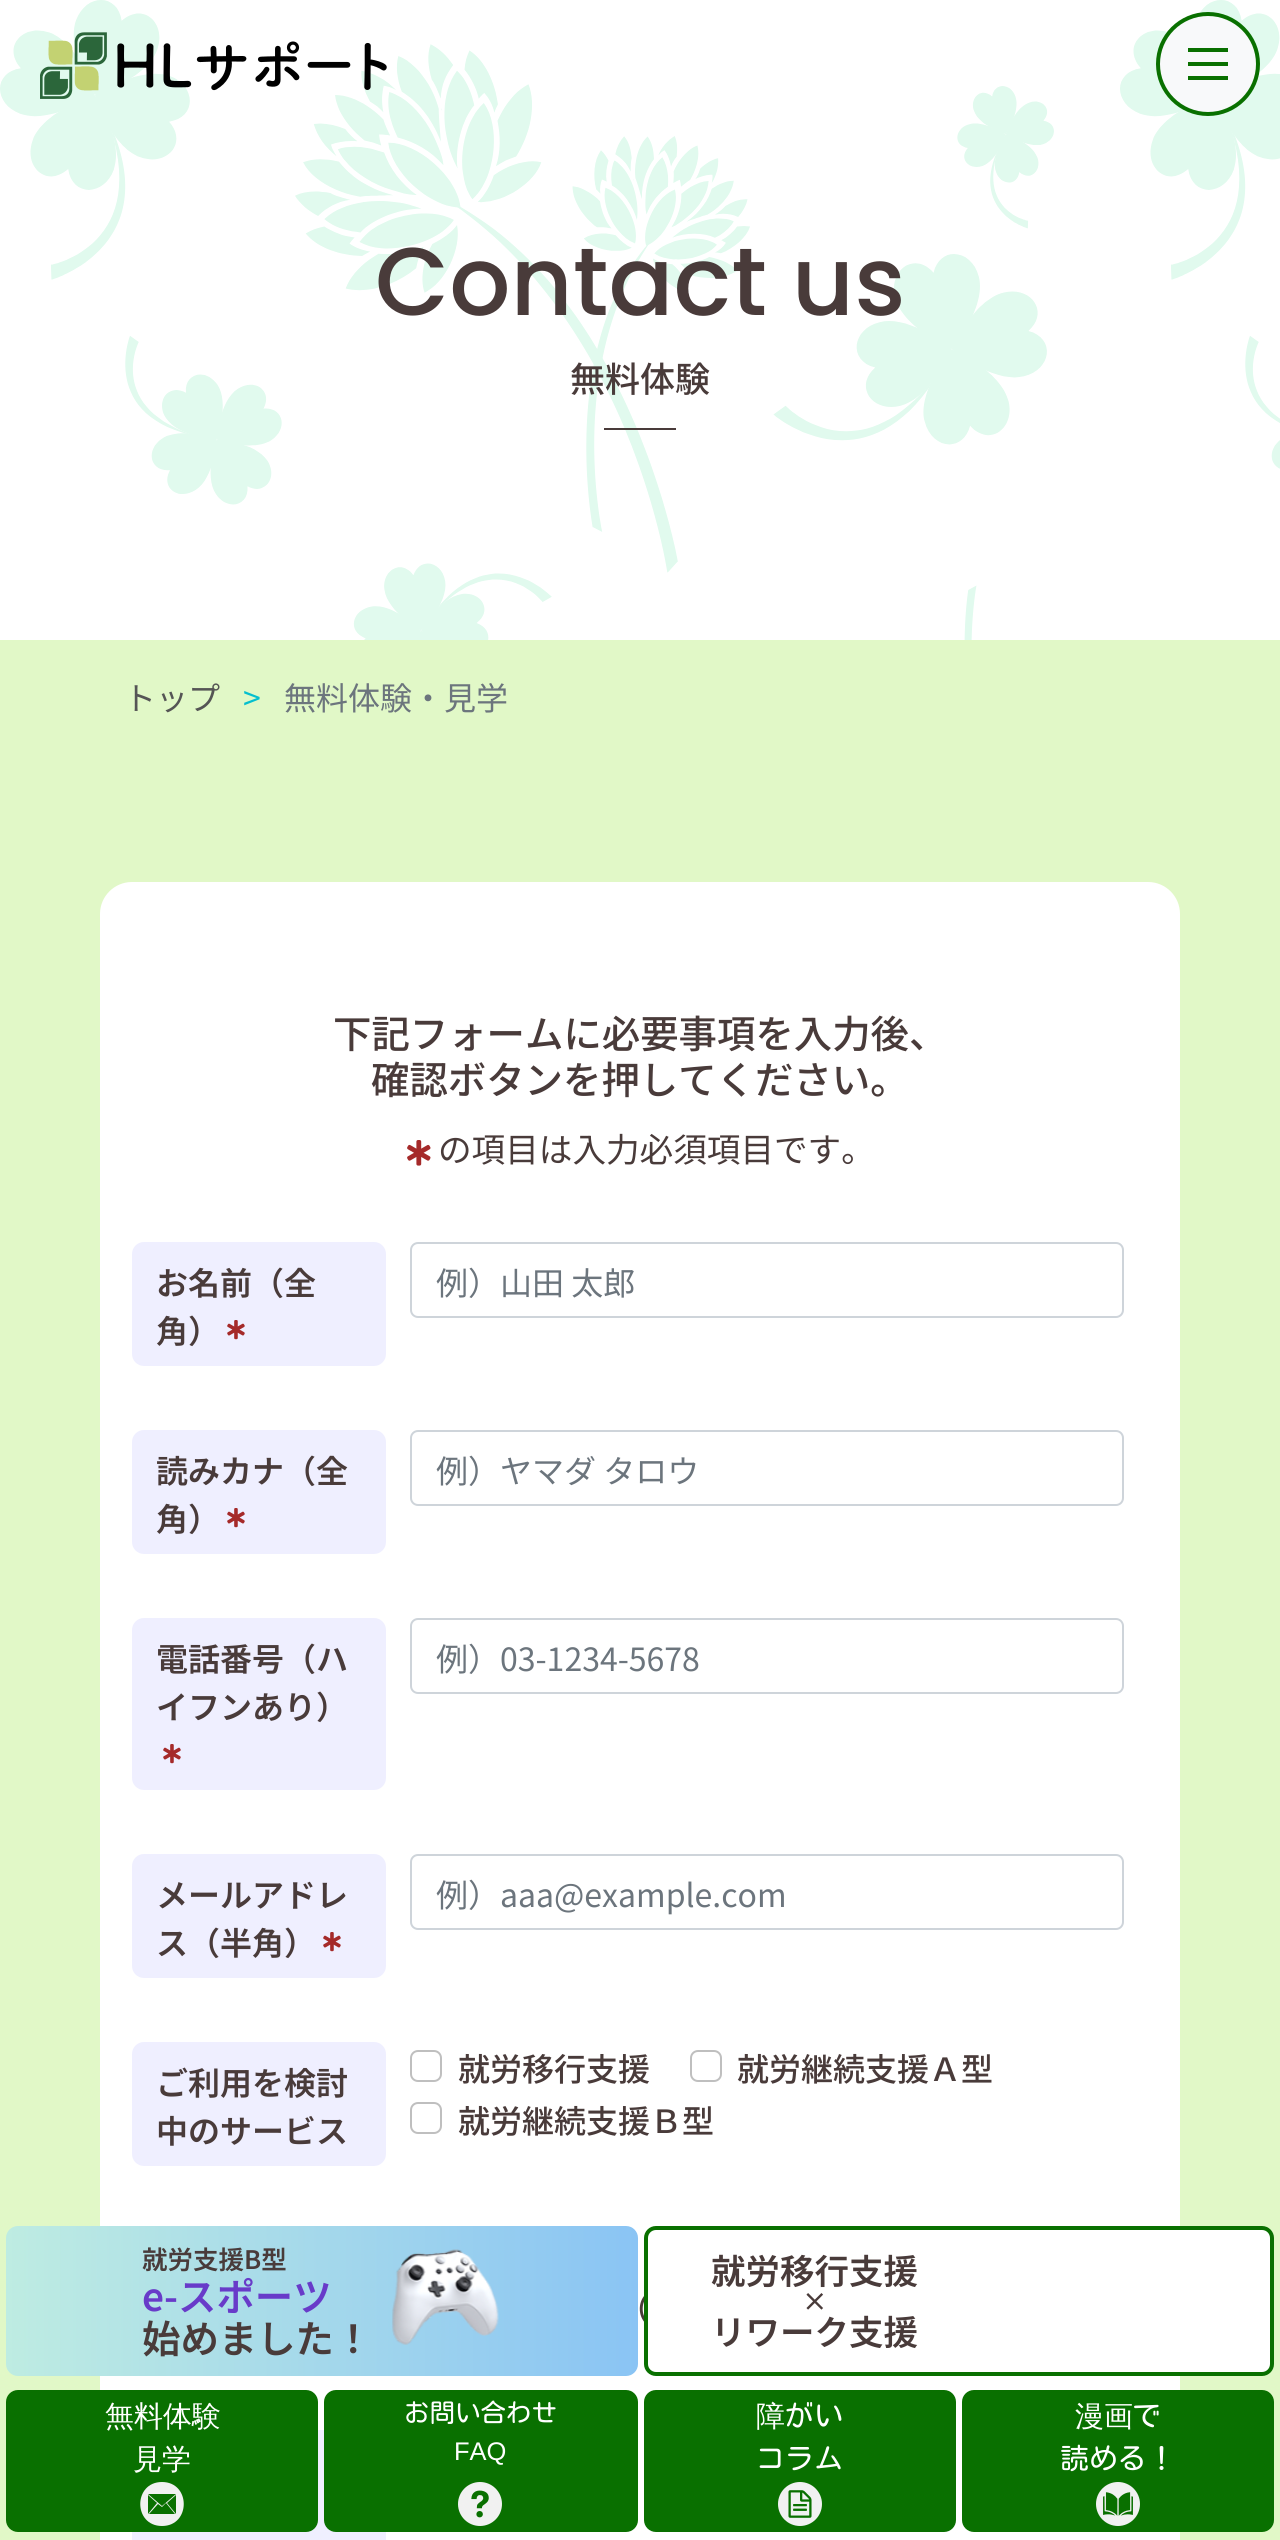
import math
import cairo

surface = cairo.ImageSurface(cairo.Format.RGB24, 1280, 2540)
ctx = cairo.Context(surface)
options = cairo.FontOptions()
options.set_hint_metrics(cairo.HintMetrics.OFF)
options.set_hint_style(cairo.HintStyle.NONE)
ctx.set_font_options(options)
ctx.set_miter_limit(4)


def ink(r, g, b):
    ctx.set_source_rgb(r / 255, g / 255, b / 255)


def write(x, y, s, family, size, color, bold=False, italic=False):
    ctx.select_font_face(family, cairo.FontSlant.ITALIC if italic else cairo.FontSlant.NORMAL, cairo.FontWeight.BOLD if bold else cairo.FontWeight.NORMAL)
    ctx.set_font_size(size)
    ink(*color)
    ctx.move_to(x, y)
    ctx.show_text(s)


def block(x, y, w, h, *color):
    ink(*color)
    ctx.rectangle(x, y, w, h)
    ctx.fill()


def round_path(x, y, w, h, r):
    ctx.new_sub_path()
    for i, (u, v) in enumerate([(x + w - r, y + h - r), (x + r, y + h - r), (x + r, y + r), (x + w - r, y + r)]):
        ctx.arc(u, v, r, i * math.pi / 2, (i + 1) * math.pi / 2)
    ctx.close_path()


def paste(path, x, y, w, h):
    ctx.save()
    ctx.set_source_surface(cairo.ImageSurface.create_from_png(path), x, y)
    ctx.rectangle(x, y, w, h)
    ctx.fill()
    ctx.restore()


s1 = dict(family="Poppins Medium", size=96, color=(73, 59, 58))
s2 = dict(family="Noto Sans JP Medium", size=35, color=(73, 59, 58))
s3 = dict(family="Noto Sans JP", size=32, color=(85, 85, 85))
s4 = dict(family="Noto Sans JP", size=32, color=(5, 191, 206))
s5 = dict(family="Noto Sans JP", size=32, color=(108, 117, 125))
s6 = dict(family="Noto Sans JP Medium", size=38.4, color=(73, 59, 58))
s7 = dict(family="Noto Sans JP", size=33.6, color=(73, 59, 58))
s8 = dict(family="Noto Sans JP SemiBold", size=32, color=(73, 59, 58))
s9 = dict(family="Noto Sans JP Medium", size=32, color=(73, 59, 58))
s10 = dict(family="Noto Sans JP SemiBold", size=25.5, color=(73, 59, 58))
s11 = dict(family="Noto Sans JP SemiBold", size=38.4, color=(104, 59, 201))
s12 = dict(family="Noto Sans JP SemiBold", size=38.4, color=(73, 59, 58))
s13 = dict(family="Noto Sans JP SemiBold", size=34.5, color=(73, 59, 58))
s14 = dict(family="WenQuanYi Zen Hei Medium", size=29, color=(255, 255, 255))
s15 = dict(family="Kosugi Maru", size=25.5, color=(255, 255, 255))
s16 = dict(family="Liberation Sans", size=25.5, color=(255, 255, 255))
s17 = dict(family="Kosugi Maru", size=29, color=(255, 255, 255))

ink(225, 248, 199)
ctx.paint()
block(0, 0, 1280, 640, 255, 255, 255)
paste("pic2.png", 0, 0, 1280, 640)
paste("pic1.png", 40, 32, 347, 67)
ink(248, 249, 250)
ctx.arc(1208, 64, 50, 0, 2 * math.pi)
ctx.fill_preserve()
ink(9, 112, 0)
ctx.set_line_width(4)
ctx.stroke()
block(1188, 62, 40, 4, 9, 112, 0)
block(1188, 48, 40, 4, 9, 112, 0)
block(1188, 76, 40, 4, 9, 112, 0)
write(375, 315, "Contact us", **s1)
write(570, 392, "無料体験", **s2)
block(604, 428, 72, 2, 73, 59, 58)
write(124, 710, "トップ", **s3)
write(243, 710, ">", **s4)
write(284, 710, "無料体験・見学", **s5)
ink(255, 255, 255)
round_path(100, 882, 1080, 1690, 32)
ctx.fill()
write(333, 1048, "下記フォームに必要事項を入力後、", **s6)
write(371, 1094, "確認ボタンを押してください。", **s6)
paste("pic3.png", 407, 1140, 24, 26)
write(438, 1162, "の項目は入力必須項目です。", **s7)
ink(239, 239, 255)
round_path(132, 1242, 254, 124, 12)
ctx.fill()
write(156, 1295, "お名前（全", **s8)
write(156, 1343, "角）", **s8)
paste("pic4.png", 227, 1320, 18, 20)
round_path(411, 1243, 712, 74, 7)
ink(206, 212, 218)
ctx.set_line_width(2)
ctx.stroke()
write(436, 1295, "例）山田 太郎", **s5)
ink(239, 239, 255)
round_path(132, 1430, 254, 124, 12)
ctx.fill()
write(156, 1483, "読みカナ（全", **s8)
write(156, 1531, "角）", **s8)
paste("pic4.png", 227, 1508, 18, 20)
round_path(411, 1431, 712, 74, 7)
ink(206, 212, 218)
ctx.stroke()
write(436, 1483, "例）ヤマダ タロウ", **s5)
ink(239, 239, 255)
round_path(132, 1618, 254, 172, 12)
ctx.fill()
write(156, 1671, "電話番号（ハ", **s8)
write(156, 1719, "イフンあり）", **s8)
paste("pic4.png", 163, 1744, 18, 20)
round_path(411, 1619, 712, 74, 7)
ink(206, 212, 218)
ctx.stroke()
write(436, 1671, "例）03-1234-5678", **s5)
ink(239, 239, 255)
round_path(132, 1854, 254, 124, 12)
ctx.fill()
write(156, 1907, "メールアドレ", **s8)
write(156, 1955, "ス（半角）", **s8)
paste("pic4.png", 323, 1932, 18, 20)
round_path(411, 1855, 712, 74, 7)
ink(206, 212, 218)
ctx.stroke()
write(436, 1907, "例）aaa@example.com", **s5)
ink(239, 239, 255)
round_path(132, 2042, 254, 124, 12)
ctx.fill()
write(156, 2095, "ご利用を検討", **s8)
write(156, 2143, "中のサービス", **s8)
round_path(411, 2051, 30, 30, 7)
ink(191, 191, 191)
ctx.stroke()
write(458, 2081, "就労移行支援", **s9)
round_path(691, 2051, 30, 30, 7)
ink(191, 191, 191)
ctx.stroke()
write(737, 2081, "就労継続支援Ａ型", **s9)
round_path(411, 2103, 30, 30, 7)
ink(191, 191, 191)
ctx.stroke()
write(458, 2133, "就労継続支援Ｂ型", **s9)
write(618, 2321, "（", **s9)
block(132, 2430, 254, 110, 239, 239, 255)
gradient = cairo.LinearGradient(6, 2301, 638, 2301)
gradient.add_color_stop_rgba(0, 0.745, 0.925, 0.886, 1)
gradient.add_color_stop_rgba(1, 0.541, 0.769, 0.957, 1)
ctx.set_source(gradient)
round_path(6, 2226, 632, 150, 12)
ctx.fill()
write(142, 2269, "就労支援B型", **s10)
write(142, 2311, "e-スポーツ", **s11)
write(142, 2353, "始めました！", **s12)
paste("pic5.png", 392, 2249, 107, 96)
ink(255, 255, 255)
round_path(646, 2228, 626, 146, 10)
ctx.fill_preserve()
ink(9, 112, 0)
ctx.set_line_width(4)
ctx.stroke()
write(711, 2284, "就労移行支援", **s13)
write(802, 2311, "×", **s10)
write(711, 2345, "リワーク支援", **s13)
ink(9, 112, 0)
round_path(6, 2390, 312, 142, 12)
ctx.fill()
write(105, 2426, "無料体験", **s14)
write(133, 2469, "見学", **s14)
ink(241, 241, 241)
ctx.new_path()
ctx.move_to(162, 2482)
ctx.curve_to(133, 2482, 133, 2526, 162, 2526)
ctx.curve_to(191, 2526, 191, 2482, 162, 2482)
ctx.close_path()
ctx.move_to(176, 2494)
ctx.line_to(162, 2506)
ctx.line_to(148, 2494)
ctx.close_path()
ctx.move_to(148, 2495)
ctx.line_to(157, 2503)
ctx.line_to(148, 2514)
ctx.close_path()
ctx.move_to(149, 2514)
ctx.line_to(158, 2504)
ctx.line_to(162, 2507)
ctx.line_to(166, 2503)
ctx.line_to(175, 2514)
ctx.close_path()
ctx.move_to(176, 2514)
ctx.line_to(167, 2503)
ctx.line_to(176, 2495)
ctx.close_path()
ctx.fill()
ink(9, 112, 0)
round_path(324, 2390, 314, 142, 12)
ctx.fill()
write(404, 2422, "お問い合わせ", **s15)
write(454, 2460, "FAQ", **s16)
paste("pic6.png", 458, 2482, 44, 44)
ink(9, 112, 0)
round_path(644, 2390, 312, 142, 12)
ctx.fill()
write(756, 2426, "障", **s14)
write(785, 2426, "がい", **s17)
write(756, 2469, "コラム", **s17)
paste("pic7.png", 778, 2482, 44, 44)
ink(9, 112, 0)
round_path(962, 2390, 312, 142, 12)
ctx.fill()
write(1075, 2426, "漫画", **s14)
write(1132, 2426, "で", **s17)
write(1060, 2469, "読める！", **s17)
paste("pic8.png", 1096, 2482, 44, 44)
surface.write_to_png("screenshot.png")
